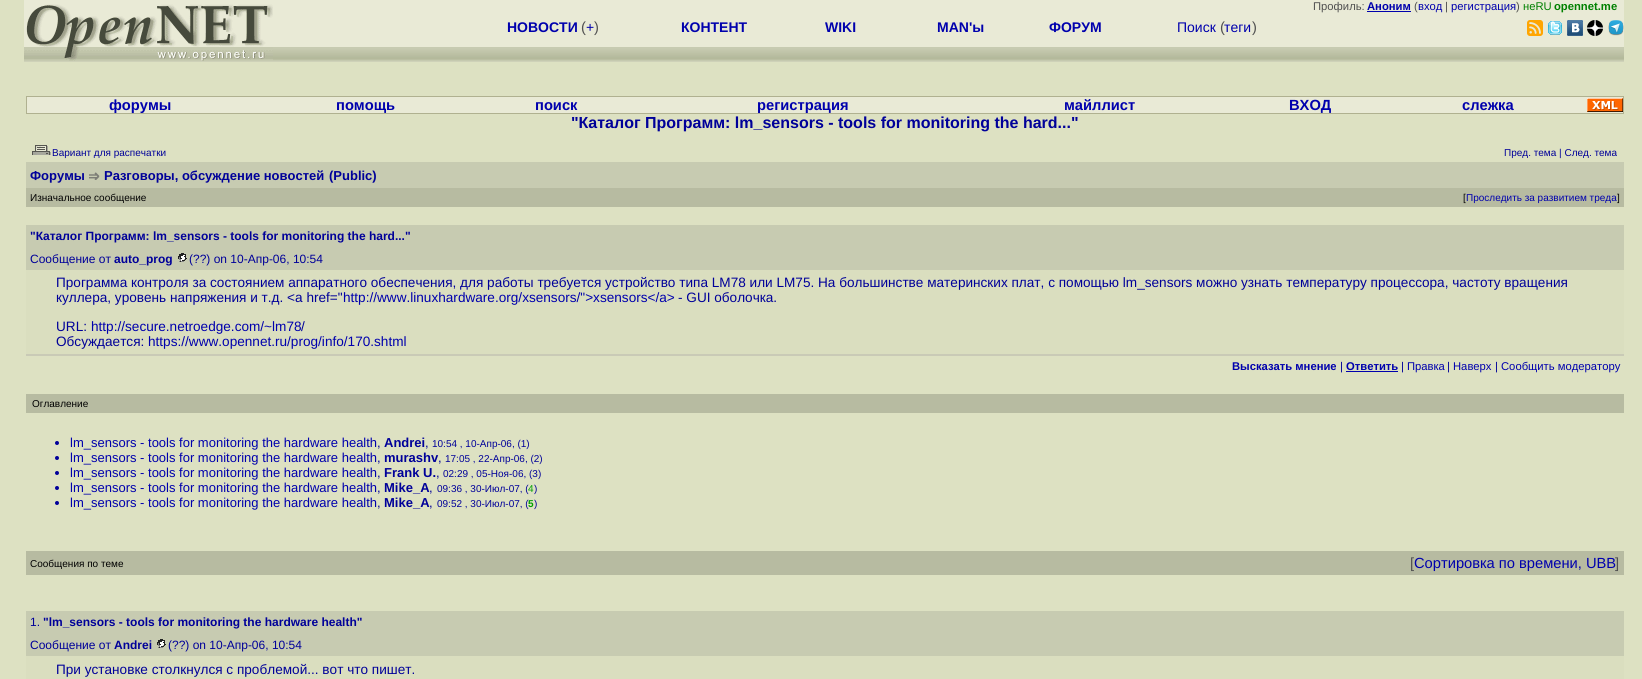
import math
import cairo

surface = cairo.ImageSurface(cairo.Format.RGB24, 1642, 679)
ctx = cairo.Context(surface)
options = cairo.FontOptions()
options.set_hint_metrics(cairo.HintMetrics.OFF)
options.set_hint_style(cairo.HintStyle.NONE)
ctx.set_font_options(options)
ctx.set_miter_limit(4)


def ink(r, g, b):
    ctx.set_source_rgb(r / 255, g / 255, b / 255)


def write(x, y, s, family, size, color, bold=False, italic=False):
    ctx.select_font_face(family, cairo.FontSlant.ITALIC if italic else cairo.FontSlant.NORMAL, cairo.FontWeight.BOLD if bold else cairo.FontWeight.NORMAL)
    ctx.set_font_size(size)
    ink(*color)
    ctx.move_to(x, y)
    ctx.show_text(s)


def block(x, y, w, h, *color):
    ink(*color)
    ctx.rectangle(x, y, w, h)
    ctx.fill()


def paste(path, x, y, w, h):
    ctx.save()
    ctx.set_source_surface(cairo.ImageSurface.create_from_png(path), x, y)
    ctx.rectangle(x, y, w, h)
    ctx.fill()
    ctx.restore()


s1 = dict(family="Liberation Sans", size=11.25, color=(80, 80, 80))
s2 = dict(family="Liberation Sans", size=11.25, color=(0, 0, 173), bold=True)
s3 = dict(family="Liberation Sans", size=11.25, color=(0, 0, 173))
s4 = dict(family="Liberation Sans", size=11.25, color=(0, 128, 0))
s5 = dict(family="Liberation Sans", size=11.25, color=(0, 128, 0), bold=True)
s6 = dict(family="Liberation Sans", size=14, color=(0, 0, 173), bold=True)
s7 = dict(family="Liberation Sans", size=14.7, color=(80, 80, 80))
s8 = dict(family="Liberation Sans", size=14, color=(0, 0, 173))
s9 = dict(family="Liberation Sans", size=14.7, color=(0, 0, 173), bold=True)
s10 = dict(family="Liberation Sans", size=16, color=(0, 0, 153), bold=True)
s11 = dict(family="Liberation Sans", size=10, color=(0, 0, 153))
s12 = dict(family="Liberation Sans", size=13, color=(0, 0, 153), bold=True)
s13 = dict(family="Liberation Sans", size=10, color=(0, 0, 0))
s14 = dict(family="Liberation Sans", size=10, color=(0, 0, 173))
s15 = dict(family="Liberation Sans", size=12, color=(0, 0, 153), bold=True)
s16 = dict(family="Liberation Sans", size=12, color=(0, 0, 153))
s17 = dict(family="Liberation Sans", size=13.6, color=(0, 0, 153))
s18 = dict(family="Liberation Sans", size=13.6, color=(0, 0, 173))
s19 = dict(family="Liberation Sans", size=11.25, color=(0, 0, 153))
s20 = dict(family="Liberation Sans", size=13, color=(0, 0, 173))
s21 = dict(family="Liberation Sans", size=13, color=(0, 0, 153))
s22 = dict(family="Liberation Sans", size=10, color=(0, 160, 0))
s23 = dict(family="Liberation Sans", size=10, color=(0, 160, 0), bold=True)
s24 = dict(family="Liberation Sans", size=14.7, color=(0, 0, 173))

ink(221, 225, 194)
ctx.paint()
block(24, 0, 1600, 2, 233, 234, 214)
block(24, 2, 1600, 45, 233, 234, 214)
write(1313, 10, "Профиль:", **s1)
write(1367, 10, "Аноним", **s2)
block(1367, 11, 44, 1, 0, 0, 173)
write(1414, 10, "(", **s1)
write(1418, 10, "вход", **s3)
write(1445, 10, "|", **s1)
write(1451, 10, "регистрация", **s3)
write(1516, 10, ")", **s1)
write(1523, 10, "неRU", **s4)
write(1554, 10, "opennet.me", **s5)
paste("pic1.png", 24, 47, 360, 15)
paste("pic2.png", 24, 4, 249, 57)
paste("pic3.png", 504, 47, 800, 15)
write(507, 32, "НОВОСТИ", **s6)
write(581, 32, "(", **s7)
write(586, 32, "+", **s8)
write(594, 32, ")", **s7)
write(681, 32, "КОНТЕНТ", **s6)
write(825, 32, "WIKI", **s6)
write(937, 32, "MAN'ы", **s6)
write(1049, 32, "ФОРУМ", **s6)
write(1177, 32, "Поиск", **s8)
write(1220, 32, "(", **s7)
write(1224, 32, "теги", **s8)
write(1252, 32, ")", **s7)
paste("pic4.png", 1304, 47, 320, 15)
paste("pic5.png", 1527, 20, 16, 16)
paste("pic6.png", 1548, 21, 14, 14)
paste("pic7.png", 1567, 20, 16, 16)
paste("pic8.png", 1587, 20, 16, 16)
paste("pic9.png", 1608, 20, 16, 16)
paste("pic10.png", 384, 47, 120, 15)
block(26, 96, 1598, 18, 176, 177, 144)
block(27, 97, 1596, 16, 233, 234, 214)
write(109, 110, "форумы", **s9)
write(336, 110, "помощь", **s9)
write(535, 110, "поиск", **s9)
write(757, 110, "регистрация", **s9)
write(1064, 110, "майллист", **s9)
write(1289, 110, "ВХОД", **s9)
write(1462, 110, "слежка", **s9)
paste("pic11.png", 1587, 98, 36, 14)
write(571, 128, "\"Каталог Программ: lm_sensors - tools for monitoring the hard...\"", **s10)
paste("pic12.png", 32, 145, 19, 10)
write(52, 156, "Вариант для распечатки", **s11)
write(1504, 156, "Пред. тема | След. тема", **s11)
block(26, 162, 1598, 26, 199, 203, 177)
write(30, 180, "Форумы", **s12)
paste("pic13.png", 89, 172, 11, 8)
write(104, 180, "Разговоры, обсуждение новостей", **s12)
write(329, 180, "(Public)", **s12)
block(26, 188, 1598, 19, 183, 187, 161)
write(30, 201, "Изначальное сообщение", **s13)
write(1463, 201, "[", **s13)
write(1466, 201, "Проследить за развитием треда", **s14)
write(1617, 201, "]", **s13)
block(26, 225, 1598, 45, 199, 203, 177)
write(30, 240, "\"Каталог Программ: lm_sensors - tools for monitoring the hard...\"", **s15)
write(30, 263, "Сообщение от", **s16)
write(114, 263, "auto_prog", **s15)
paste("pic14.png", 178, 253, 9, 9)
write(189, 263, "(??) on 10-Апр-06, 10:54", **s16)
block(26, 270, 1598, 84, 218, 222, 191)
write(56, 287, "Программа контроля за состоянием аппаратного обеспечения, для работы требуется устройство типа LM78 или LM75. На большинстве материнских плат, с помощью lm_sensors можно узнать температуру процессора, частоту вращения", **s17)
write(56, 302, "куллера, уровень напряжения и т.д. <a href=\"", **s17)
write(343, 302, "http://www.linuxhardware.org/xsensors/\">xsensors</a>", **s18)
write(678, 302, "- GUI оболочка.", **s17)
write(56, 331, "URL:", **s17)
write(91, 331, "http://secure.netroedge.com/~lm78", **s18)
write(301, 331, "/", **s17)
write(56, 346, "Обсуждается:", **s17)
write(148, 346, "https://www.opennet.ru/prog/info/170.shtml", **s18)
block(26, 354, 1598, 2, 201, 202, 182)
write(1232, 370, "Высказать мнение", **s2)
write(1340, 370, "|", **s19)
write(1346, 370, "Ответить", **s2)
block(1346, 371, 52, 1, 0, 0, 173)
write(1401, 370, "|", **s19)
write(1407, 370, "Правка", **s3)
write(1447, 370, "|", **s19)
write(1453, 370, "Наверх", **s3)
write(1495, 370, "|", **s19)
write(1501, 370, "Cообщить модератору", **s3)
block(26, 394, 1598, 19, 183, 187, 161)
write(32, 407, "Оглавление", **s13)
ink(0, 0, 153)
ctx.new_path()
ctx.arc(57, 443, 2, 0, 2 * math.pi)
ctx.fill()
write(70, 447, "lm_sensors - tools for monitoring the hardware health", **s20)
write(384, 447, "Andrei", **s12)
write(432, 447, "10:54 , 10-Апр-06, (1)", **s11)
write(377, 447, ",", **s21)
write(425, 447, ",", **s21)
ctx.new_path()
ctx.arc(57, 458, 2, 0, 2 * math.pi)
ctx.fill()
write(70, 462, "lm_sensors - tools for monitoring the hardware health", **s20)
write(384, 462, "murashv", **s12)
write(445, 462, "17:05 , 22-Апр-06, (2)", **s11)
write(377, 462, ",", **s21)
write(438, 462, ",", **s21)
ctx.new_path()
ctx.arc(57, 473, 2, 0, 2 * math.pi)
ctx.fill()
write(70, 477, "lm_sensors - tools for monitoring the hardware health", **s20)
write(384, 477, "Frank U.", **s12)
write(443, 477, "02:29 , 05-Ноя-06, (3)", **s11)
write(377, 477, ",", **s21)
write(436, 477, ",", **s21)
ctx.new_path()
ctx.arc(57, 488, 2, 0, 2 * math.pi)
ctx.fill()
write(70, 492, "lm_sensors - tools for monitoring the hardware health", **s20)
write(384, 492, "Mike_A", **s12)
write(437, 492, "09:36 , 30-Июл-07, (", **s11)
write(528, 492, "4", **s22)
write(534, 492, ")", **s11)
write(377, 492, ",", **s21)
write(429, 492, ",", **s21)
ctx.new_path()
ctx.arc(57, 503, 2, 0, 2 * math.pi)
ctx.fill()
write(70, 507, "lm_sensors - tools for monitoring the hardware health", **s20)
write(384, 507, "Mike_A", **s12)
write(437, 507, "09:52 , 30-Июл-07, (", **s11)
write(528, 507, "5", **s23)
write(534, 507, ")", **s11)
write(377, 507, ",", **s21)
write(429, 507, ",", **s21)
block(26, 551, 1598, 24, 183, 187, 161)
write(30, 567, "Сообщения по теме", **s13)
write(1410, 568, "[", **s7)
write(1414, 568, "Сортировка по времени, UBB", **s24)
write(1615, 568, "]", **s7)
block(26, 611, 1598, 45, 199, 203, 177)
write(30, 626, "1.", **s16)
write(43, 626, "\"lm_sensors - tools for monitoring the hardware health\"", **s15)
write(30, 649, "Сообщение от", **s16)
write(114, 649, "Andrei", **s15)
paste("pic14.png", 157, 639, 9, 9)
write(168, 649, "(??) on 10-Апр-06, 10:54", **s16)
block(26, 656, 1598, 23, 218, 222, 191)
write(56, 674, "При установке столкнулся с проблемой... вот что пишет.", **s17)
surface.write_to_png("screenshot.png")
